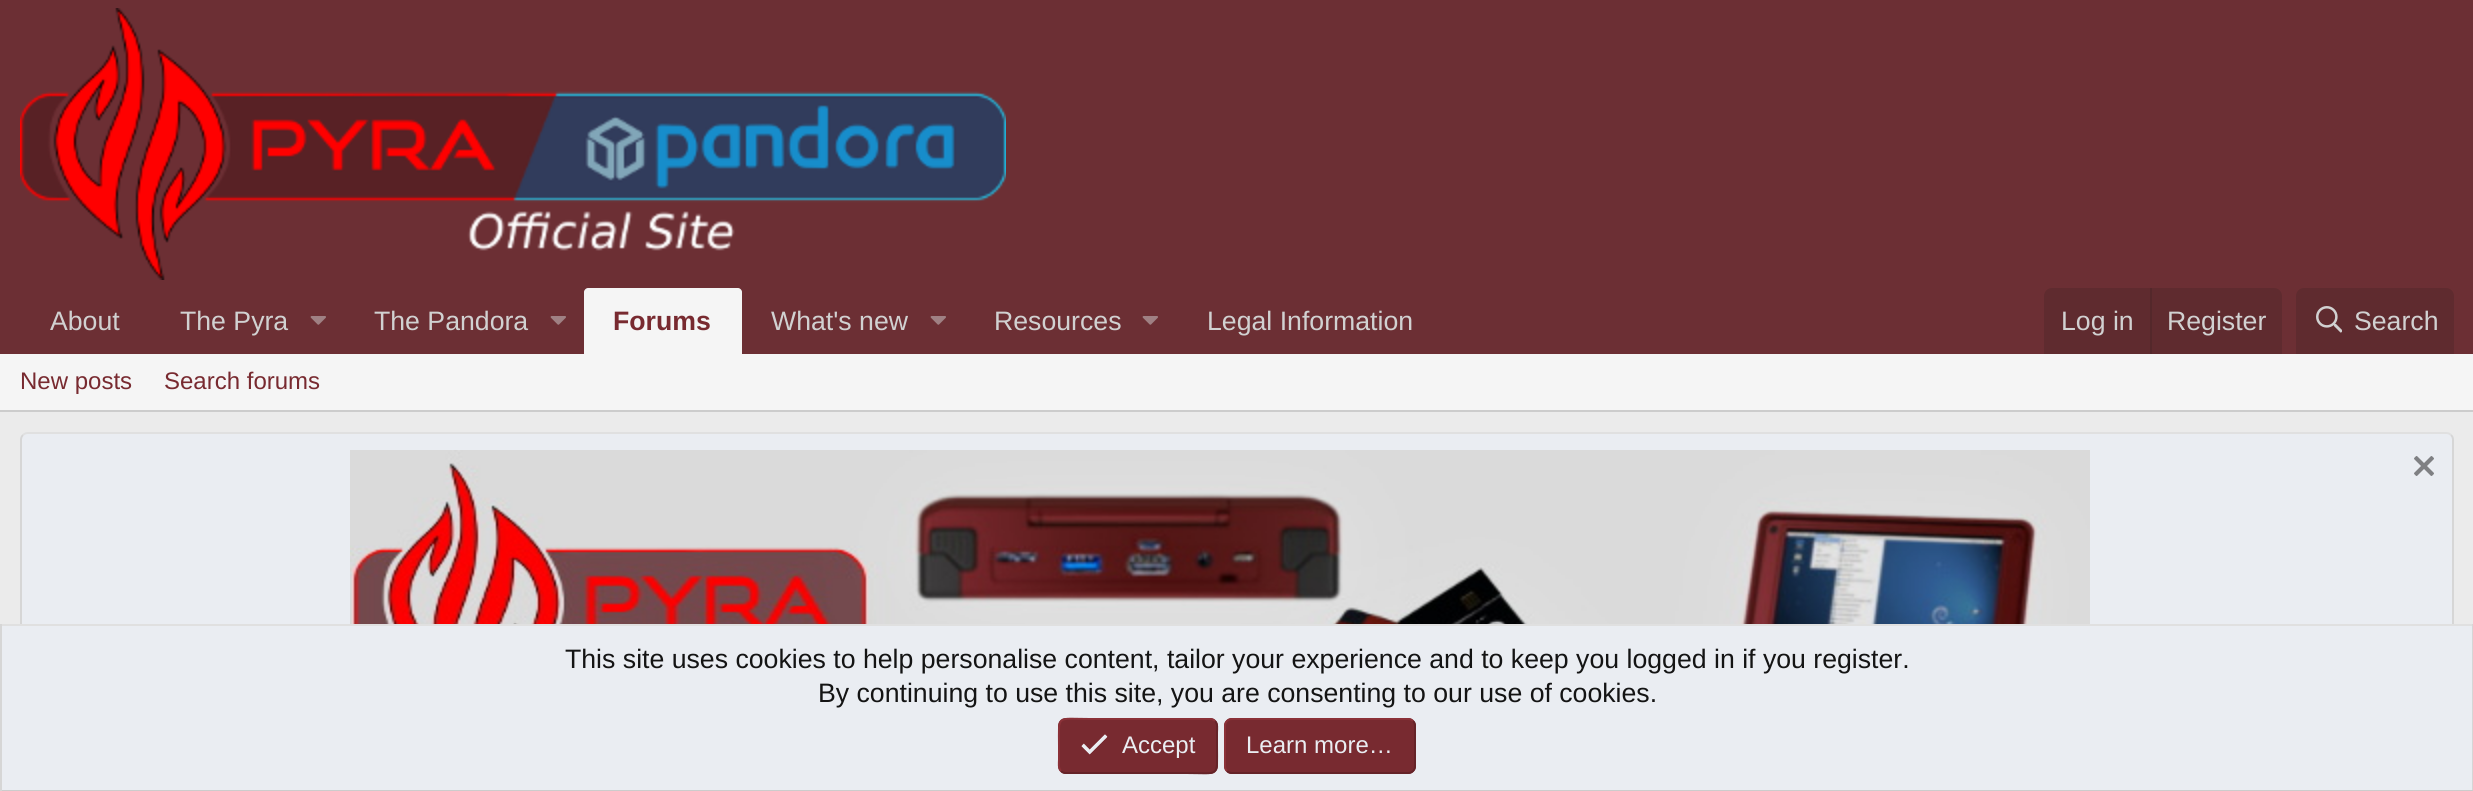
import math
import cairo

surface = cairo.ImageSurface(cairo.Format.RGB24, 2473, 791)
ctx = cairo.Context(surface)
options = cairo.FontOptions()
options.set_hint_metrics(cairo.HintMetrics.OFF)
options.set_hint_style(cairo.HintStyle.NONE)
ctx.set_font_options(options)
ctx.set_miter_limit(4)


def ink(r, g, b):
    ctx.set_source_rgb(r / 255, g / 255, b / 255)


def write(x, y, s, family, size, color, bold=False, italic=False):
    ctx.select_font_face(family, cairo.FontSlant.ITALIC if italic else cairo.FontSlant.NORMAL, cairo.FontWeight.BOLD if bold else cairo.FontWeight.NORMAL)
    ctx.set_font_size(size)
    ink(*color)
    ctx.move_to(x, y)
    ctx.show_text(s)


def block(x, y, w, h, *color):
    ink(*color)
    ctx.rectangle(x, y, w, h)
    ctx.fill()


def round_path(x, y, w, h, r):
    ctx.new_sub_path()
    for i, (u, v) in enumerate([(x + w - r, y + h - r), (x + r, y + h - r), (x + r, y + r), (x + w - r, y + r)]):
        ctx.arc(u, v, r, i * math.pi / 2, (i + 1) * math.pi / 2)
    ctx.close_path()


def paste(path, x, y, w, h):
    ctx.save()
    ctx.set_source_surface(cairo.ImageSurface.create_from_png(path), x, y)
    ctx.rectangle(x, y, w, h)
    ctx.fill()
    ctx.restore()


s1 = dict(family="Liberation Sans", size=26.67, color=(209, 209, 209))
s2 = dict(family="Liberation Sans", size=26.67, color=(120, 42, 48), bold=True)
s3 = dict(family="Liberation Sans", size=24, color=(120, 42, 48))
s4 = dict(family="Liberation Sans", size=26.67, color=(20, 20, 20))
s5 = dict(family="Liberation Sans", size=24, color=(234, 237, 242))

ink(235, 235, 235)
ctx.paint()
block(0, 0, 2473, 354, 108, 47, 52)
paste("pic1.png", 20, 8, 986, 272)
write(50, 330, "About", **s1)
write(180, 330, "The Pyra", **s1)
paste("pic2.png", 310, 316, 16, 9)
write(374, 330, "The Pandora", **s1)
paste("pic2.png", 550, 316, 16, 9)
ink(245, 245, 245)
ctx.new_path()
ctx.move_to(588, 288)
ctx.line_to(738, 288)
ctx.curve_to(740, 288, 742, 290, 742, 292)
ctx.line_to(742, 354)
ctx.line_to(584, 354)
ctx.line_to(584, 292)
ctx.curve_to(584, 290, 586, 288, 588, 288)
ctx.close_path()
ctx.fill()
write(613, 330, "Forums", **s2)
write(771, 330, "What's new", **s1)
paste("pic2.png", 930, 316, 16, 9)
write(994, 330, "Resources", **s1)
paste("pic2.png", 1142, 316, 16, 9)
write(1207, 330, "Legal Information", **s1)
ink(95, 43, 47)
ctx.new_path()
ctx.move_to(2052, 288)
ctx.line_to(2274, 288)
ctx.curve_to(2278.5, 288, 2282, 291.5, 2282, 296)
ctx.line_to(2282, 354)
ctx.line_to(2044, 354)
ctx.line_to(2044, 296)
ctx.curve_to(2044, 291.5, 2047.5, 288, 2052, 288)
ctx.close_path()
ctx.fill()
write(2061, 330, "Log in", **s1)
block(2150, 288, 2, 66, 84, 40, 43)
write(2167, 330, "Register", **s1)
ink(95, 43, 47)
ctx.new_path()
ctx.move_to(2304, 288)
ctx.line_to(2446, 288)
ctx.curve_to(2450.5, 288, 2454, 291.5, 2454, 296)
ctx.line_to(2454, 354)
ctx.line_to(2296, 354)
ctx.line_to(2296, 296)
ctx.curve_to(2296, 291.5, 2299.5, 288, 2304, 288)
ctx.close_path()
ctx.fill()
paste("pic3.png", 2316, 306, 26, 27)
write(2354, 330, "Search", **s1)
block(0, 354, 2473, 56, 245, 245, 245)
block(0, 410, 2473, 2, 204, 204, 204)
write(20, 389, "New posts", **s3)
write(164, 389, "Search forums", **s3)
ink(234, 237, 242)
round_path(20, 432, 2434, 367, 8)
ctx.fill()
ctx.new_path()
ctx.move_to(23, 435)
ctx.curve_to(24.5, 433.5, 26, 433, 28, 433)
ctx.line_to(2446, 433)
ctx.curve_to(2448, 433, 2449.5, 433.5, 2451, 435)
ink(224, 224, 224)
ctx.stroke()
ctx.new_path()
ctx.move_to(2451, 435)
ctx.curve_to(2452.5, 436.5, 2453, 438, 2453, 440)
ctx.line_to(2453, 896)
ctx.curve_to(2453, 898, 2452.5, 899.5, 2451, 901)
ink(214, 214, 214)
ctx.stroke()
ctx.new_path()
ctx.move_to(23, 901)
ctx.curve_to(21.5, 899.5, 21, 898, 21, 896)
ctx.line_to(21, 440)
ctx.curve_to(21, 438, 21.5, 436.5, 23, 435)
ctx.stroke()
paste("pic4.png", 350, 450, 1740, 174)
paste("pic5.png", 2414, 456, 20, 20)
block(2, 626, 2470, 164, 234, 237, 242)
block(0, 624, 2473, 2, 224, 224, 224)
block(2472, 624, 1, 167, 214, 214, 214)
block(0, 790, 2473, 1, 204, 204, 204)
block(0, 624, 2, 167, 214, 214, 214)
write(565, 668, "This site uses cookies to help personalise content, tailor your experience and to keep you logged in if you register.", **s4)
write(818, 702, "By continuing to use this site, you are consenting to our use of cookies.", **s4)
ink(120, 42, 48)
round_path(1058, 718, 160, 56, 8)
ctx.fill()
ctx.new_path()
ctx.move_to(1215, 721)
ctx.curve_to(1218, 724, 1217, 729, 1217, 732.5)
ctx.line_to(1217, 746)
ctx.curve_to(1217, 778, 1220.5, 773, 1186, 773)
ctx.line_to(1066, 773)
ctx.curve_to(1064, 773, 1062.5, 772.5, 1061, 771)
ink(101, 35, 40)
ctx.stroke()
ctx.new_path()
ctx.move_to(1061, 771)
ctx.curve_to(1058, 768, 1059, 763, 1059, 759.5)
ctx.line_to(1059, 746)
ctx.curve_to(1059, 714, 1055.5, 719, 1090, 719)
ctx.line_to(1210, 719)
ctx.curve_to(1212, 719, 1213.5, 719.5, 1215, 721)
ink(139, 49, 56)
ctx.stroke()
paste("pic6.png", 1081, 734, 27, 21)
write(1122, 753, "Accept", **s5)
ink(120, 42, 48)
round_path(1224, 718, 192, 56, 8)
ctx.fill()
ctx.new_path()
ctx.move_to(1413, 721)
ctx.curve_to(1414.5, 722.5, 1415, 724, 1415, 726)
ctx.line_to(1415, 766)
ctx.curve_to(1415, 768, 1414.5, 769.5, 1413, 771)
ctx.curve_to(1411.5, 772.5, 1410, 773, 1408, 773)
ctx.line_to(1232, 773)
ctx.curve_to(1230, 773, 1228.5, 772.5, 1227, 771)
ink(101, 35, 40)
ctx.stroke()
ctx.new_path()
ctx.move_to(1227, 771)
ctx.curve_to(1225.5, 769.5, 1225, 768, 1225, 766)
ctx.line_to(1225, 726)
ctx.curve_to(1225, 724, 1225.5, 722.5, 1227, 721)
ctx.curve_to(1228.5, 719.5, 1230, 719, 1232, 719)
ctx.line_to(1408, 719)
ctx.curve_to(1410, 719, 1411.5, 719.5, 1413, 721)
ink(139, 49, 56)
ctx.stroke()
write(1246, 753, "Learn more…", **s5)
surface.write_to_png("screenshot.png")
